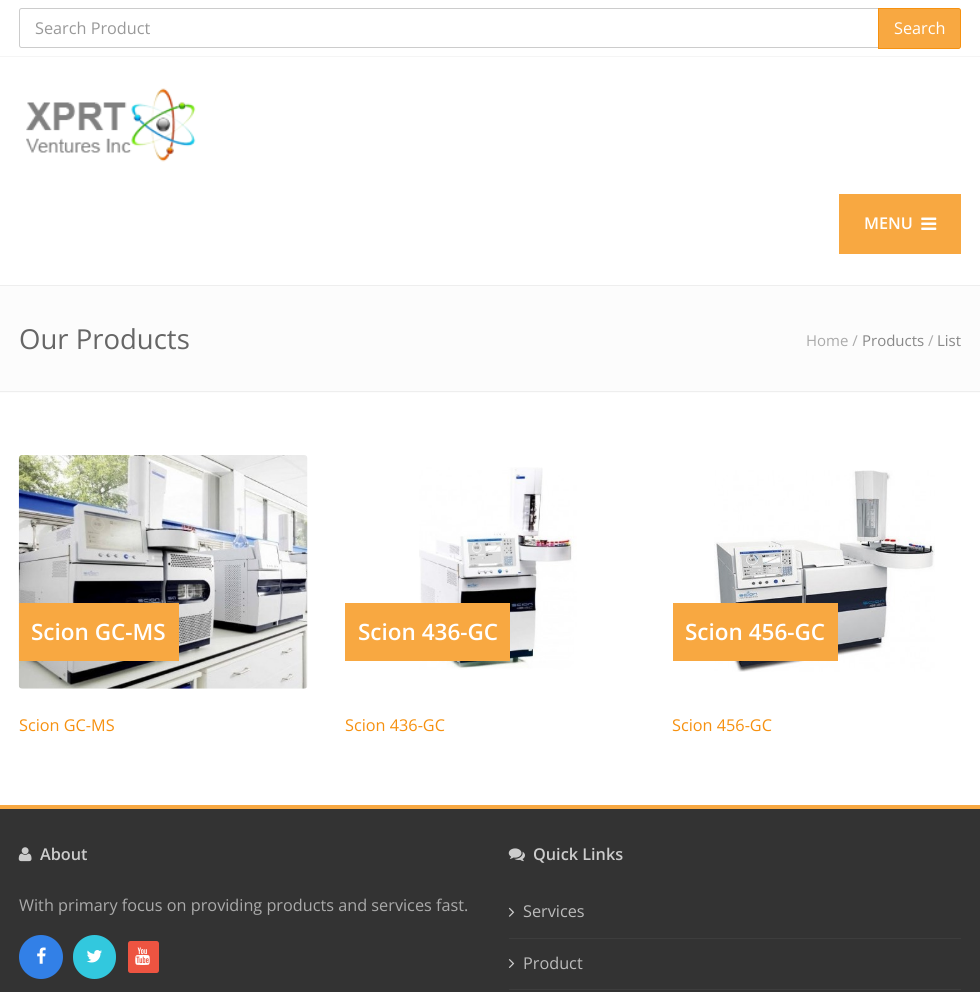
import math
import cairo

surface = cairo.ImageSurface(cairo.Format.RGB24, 980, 992)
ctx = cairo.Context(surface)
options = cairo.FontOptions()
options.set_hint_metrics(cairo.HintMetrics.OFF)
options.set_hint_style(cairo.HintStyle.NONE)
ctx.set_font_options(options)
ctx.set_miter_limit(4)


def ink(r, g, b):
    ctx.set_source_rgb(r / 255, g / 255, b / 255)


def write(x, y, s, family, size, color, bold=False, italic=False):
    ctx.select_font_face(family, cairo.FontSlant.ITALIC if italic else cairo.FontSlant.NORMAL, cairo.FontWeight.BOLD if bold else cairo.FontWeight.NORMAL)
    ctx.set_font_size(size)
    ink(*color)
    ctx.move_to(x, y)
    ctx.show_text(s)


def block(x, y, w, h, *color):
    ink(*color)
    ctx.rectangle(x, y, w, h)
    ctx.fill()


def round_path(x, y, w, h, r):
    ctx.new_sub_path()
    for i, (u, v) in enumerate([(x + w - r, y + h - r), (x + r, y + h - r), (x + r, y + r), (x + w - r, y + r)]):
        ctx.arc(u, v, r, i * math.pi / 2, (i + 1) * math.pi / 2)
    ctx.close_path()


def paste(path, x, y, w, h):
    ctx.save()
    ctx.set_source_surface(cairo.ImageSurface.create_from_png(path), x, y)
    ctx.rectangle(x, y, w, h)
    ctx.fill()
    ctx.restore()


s1 = dict(family="Open Sans", size=16.25, color=(153, 153, 153))
s2 = dict(family="Open Sans", size=16.25, color=(255, 255, 255))
s3 = dict(family="Open Sans SemiBold", size=16.25, color=(255, 255, 255))
s4 = dict(family="Open Sans", size=27.5, color=(102, 102, 102))
s5 = dict(family="Open Sans", size=15, color=(170, 170, 170))
s6 = dict(family="Open Sans", size=15, color=(136, 136, 136))
s7 = dict(family="Open Sans SemiBold", size=22.5, color=(255, 255, 255))
s8 = dict(family="Open Sans", size=16.25, color=(246, 145, 16))
s9 = dict(family="Open Sans SemiBold", size=16.25, color=(204, 204, 204))
s10 = dict(family="Open Sans", size=16.25, color=(170, 170, 170))
s11 = dict(family="Open Sans", size=16.25, color=(187, 187, 187))

ink(255, 255, 255)
ctx.paint()
block(0, 56, 980, 1, 245, 245, 245)
ctx.new_path()
ctx.move_to(21.5, 8.5)
ctx.line_to(878.5, 8.5)
ctx.line_to(878.5, 47.5)
ctx.line_to(21.5, 47.5)
ctx.curve_to(20.5, 47.5, 19.5, 46.5, 19.5, 45.5)
ctx.line_to(19.5, 10.5)
ctx.curve_to(19.5, 9.5, 20.5, 8.5, 21.5, 8.5)
ctx.close_path()
ink(204, 204, 204)
ctx.set_line_width(1)
ctx.stroke()
write(35, 34, "Search Product", **s1)
ink(248, 168, 65)
ctx.new_path()
ctx.move_to(878.5, 8.5)
ctx.line_to(958.5, 8.5)
ctx.curve_to(959.5, 8.5, 960.5, 9.5, 960.5, 10.5)
ctx.line_to(960.5, 46.5)
ctx.curve_to(960.5, 47.5, 959.5, 48.5, 958.5, 48.5)
ctx.line_to(878.5, 48.5)
ctx.close_path()
ctx.fill_preserve()
ink(246, 145, 16)
ctx.stroke()
write(894, 34, "Search", **s2)
paste("pic1.png", 26, 88, 170, 74)
block(839, 194, 122, 60, 248, 168, 65)
write(864, 229, "MENU", **s3)
paste("pic2.png", 921, 217, 16, 13)
block(0, 286, 980, 107, 252, 252, 252)
block(0, 285, 980, 1, 238, 238, 238)
block(0, 391, 980, 1, 238, 238, 238)
write(19, 349, "Our Products", **s4)
write(806, 346, "Home /", **s5)
write(862, 346, "Products", **s6)
write(928, 346, "/", **s5)
write(937, 346, "List", **s6)
paste("pic3.png", 18, 455, 290, 234)
block(19, 603, 160, 58, 248, 168, 65)
write(31, 640, "Scion GC-MS", **s7)
write(19, 731, "Scion GC-MS", **s8)
paste("pic4.png", 419, 467, 158, 203)
block(345, 603, 165, 58, 248, 168, 65)
write(358, 640, "Scion 436-GC", **s7)
write(345, 731, "Scion 436-GC", **s8)
paste("pic5.png", 714, 470, 221, 202)
block(673, 603, 165, 58, 248, 168, 65)
write(685, 640, "Scion 456-GC", **s7)
write(672, 731, "Scion 456-GC", **s8)
block(0, 809, 980, 183, 51, 51, 51)
block(0, 805, 980, 4, 248, 168, 65)
paste("pic6.png", 18, 847, 14, 15)
write(40, 860, "About", **s9)
write(19, 911, "With primary focus on providing products and services fast.", **s10)
ink(50, 128, 231)
ctx.new_path()
ctx.arc(41, 957, 22, 0, 2 * math.pi)
ctx.fill()
paste("pic7.png", 37, 947, 9, 17)
ink(50, 200, 222)
round_path(73, 935, 43, 44, 21.5)
ctx.fill()
paste("pic8.png", 86, 950, 16, 13)
ink(237, 84, 65)
round_path(128, 941, 31, 32, 2.5)
ctx.fill()
paste("pic9.png", 135, 947, 15, 18)
paste("pic10.png", 508, 848, 17, 14)
write(533, 860, "Quick Links", **s9)
block(509, 938, 452, 1, 61, 61, 61)
paste("pic11.png", 508, 907, 7, 10)
write(523, 917, "Services", **s11)
block(509, 989, 452, 1, 61, 61, 61)
paste("pic12.png", 508, 959, 7, 9)
write(523, 969, "Product", **s11)
surface.write_to_png("screenshot.png")
